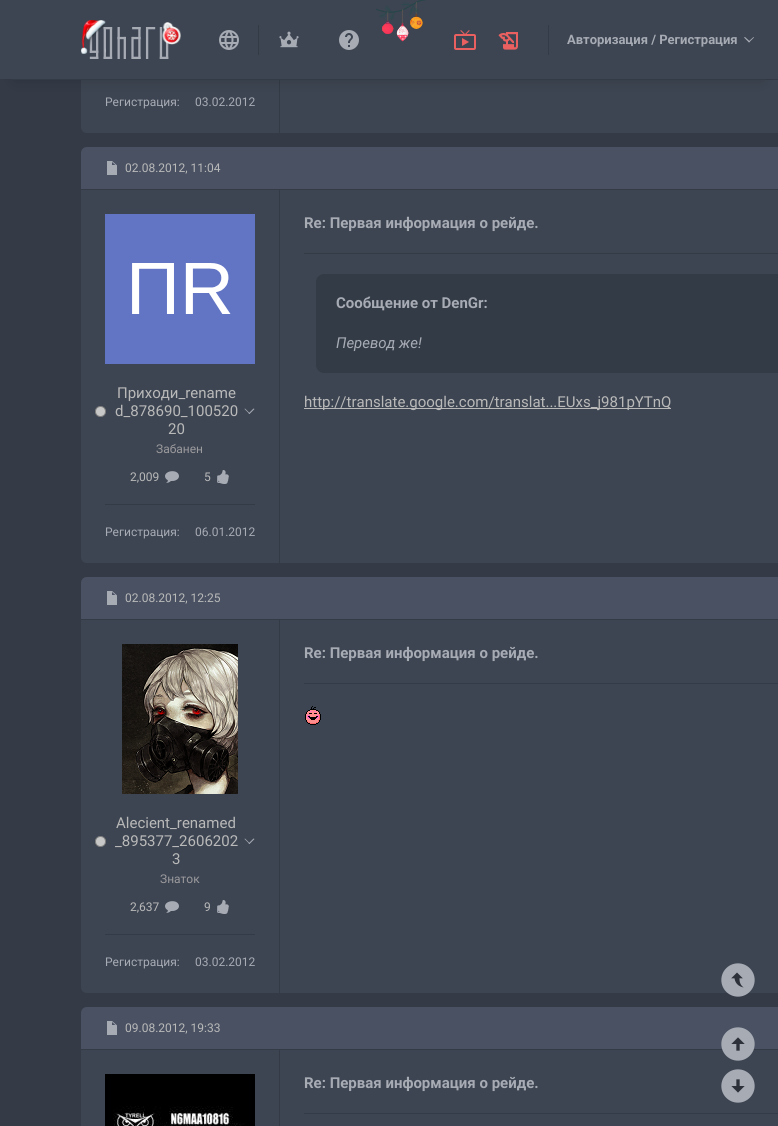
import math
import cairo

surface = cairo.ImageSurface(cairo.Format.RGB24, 778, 1126)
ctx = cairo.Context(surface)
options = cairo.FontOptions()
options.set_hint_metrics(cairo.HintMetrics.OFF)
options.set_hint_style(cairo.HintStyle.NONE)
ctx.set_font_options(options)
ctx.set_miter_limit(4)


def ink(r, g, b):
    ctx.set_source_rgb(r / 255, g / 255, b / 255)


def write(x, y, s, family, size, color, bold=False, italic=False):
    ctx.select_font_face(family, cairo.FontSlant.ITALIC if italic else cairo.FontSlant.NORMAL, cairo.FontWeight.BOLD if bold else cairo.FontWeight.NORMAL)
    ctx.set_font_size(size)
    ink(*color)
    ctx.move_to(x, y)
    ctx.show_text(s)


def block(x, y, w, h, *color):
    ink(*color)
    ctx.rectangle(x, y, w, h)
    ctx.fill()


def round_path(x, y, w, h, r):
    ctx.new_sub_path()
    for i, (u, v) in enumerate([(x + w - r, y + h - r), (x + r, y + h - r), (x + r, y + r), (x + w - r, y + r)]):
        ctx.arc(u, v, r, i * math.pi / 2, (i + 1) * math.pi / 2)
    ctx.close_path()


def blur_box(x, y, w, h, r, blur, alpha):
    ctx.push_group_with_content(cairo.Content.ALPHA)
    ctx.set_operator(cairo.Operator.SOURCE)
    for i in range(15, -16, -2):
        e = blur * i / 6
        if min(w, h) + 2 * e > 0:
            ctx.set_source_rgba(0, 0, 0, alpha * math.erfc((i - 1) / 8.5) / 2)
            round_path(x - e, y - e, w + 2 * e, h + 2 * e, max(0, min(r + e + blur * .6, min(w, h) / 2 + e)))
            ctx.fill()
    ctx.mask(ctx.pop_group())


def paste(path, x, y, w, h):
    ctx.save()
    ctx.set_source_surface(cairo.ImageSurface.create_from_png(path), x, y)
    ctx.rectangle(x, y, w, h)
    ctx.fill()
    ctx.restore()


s1 = dict(family="Roboto", size=13, color=(167, 171, 180), bold=True)
s2 = dict(family="Roboto", size=12, color=(167, 171, 180))
s3 = dict(family="Roboto", size=12, color=(185, 185, 185))
s4 = dict(family="Roboto", size=15, color=(167, 171, 180), bold=True)
s5 = dict(family="Roboto", size=15, color=(167, 171, 180), italic=True)
s6 = dict(family="Roboto", size=15, color=(185, 185, 185))
s7 = dict(family="Roboto", size=12, color=(155, 154, 157))

ink(52, 58, 70)
ctx.paint()
ink(61, 69, 82)
ctx.new_path()
ctx.move_to(81, -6)
ctx.line_to(280, -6)
ctx.line_to(280, 133)
ctx.line_to(87, 133)
ctx.curve_to(83.5, 133, 81, 130.5, 81, 127)
ctx.close_path()
ctx.fill()
block(279, 80, 1, 53, 51, 59, 70)
block(280, 80, 498, 53, 61, 69, 82)
ink(0, 0, 0)
blur_box(15, 30, 748, 50, 0, 7.5, 0.15)
block(0, 0, 778, 79, 61, 69, 82)
block(12, 79, 754, 1, 51, 59, 70)
paste("pic1.png", 81, 20, 100, 39)
paste("pic2.png", 219, 30, 20, 20)
block(258, 25, 1, 30, 51, 59, 70)
paste("pic3.png", 279, 31, 20, 17)
paste("pic4.png", 339, 30, 20, 20)
paste("pic5.png", 376, 0, 50, 42)
paste("pic6.png", 454, 30, 22, 20)
paste("pic7.png", 498, 32, 20, 18)
block(548, 25, 1, 30, 51, 59, 70)
write(567, 44, "Авторизация / Регистрация", **s1)
ctx.new_path()
ctx.move_to(753.5, 37)
ctx.line_to(754, 37.5)
ctx.line_to(749, 42.5)
ctx.line_to(748.5, 41.5)
ctx.close_path()
ctx.fill()
ctx.new_path()
ctx.move_to(745, 37)
ctx.line_to(750, 41.5)
ctx.line_to(749, 42.5)
ctx.line_to(744, 37.5)
ctx.close_path()
ctx.fill()
write(105, 106, "Регистрация:", **s2)
write(195, 106, "03.02.2012", **s2)
ink(73, 81, 98)
ctx.new_path()
ctx.move_to(87, 147)
ctx.line_to(778, 147)
ctx.curve_to(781.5, 147, 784, 149.5, 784, 153)
ctx.line_to(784, 189)
ctx.line_to(81, 189)
ctx.line_to(81, 153)
ctx.curve_to(81, 149.5, 83.5, 147, 87, 147)
ctx.close_path()
ctx.fill()
paste("pic8.png", 107, 161, 10, 14)
write(125, 172, "02.08.2012, 11:04", **s3)
block(280, 190, 498, 373, 61, 69, 82)
block(304, 253, 474, 1, 51, 59, 70)
write(304, 228, "Re: Первая информация о рейде.", **s4)
ink(51, 59, 70)
round_path(316, 274, 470, 99, 8)
ctx.fill()
write(336, 308, "Сообщение от DenGr:", **s4)
write(336, 348, "Перевод же!", **s5)
block(304, 408, 367, 1, 185, 185, 185)
write(304, 407, "http://translate.google.com/translat...EUxs_j981pYTnQ", **s6)
ink(61, 69, 82)
ctx.new_path()
ctx.move_to(81, 190)
ctx.line_to(280, 190)
ctx.line_to(280, 563)
ctx.line_to(87, 563)
ctx.curve_to(83.5, 563, 81, 560.5, 81, 557)
ctx.close_path()
ctx.fill()
block(279, 190, 1, 373, 51, 59, 70)
paste("pic9.png", 105, 214, 150, 150)
ink(200, 200, 200)
ctx.arc(100.5, 411.5, 5, 0, 2 * math.pi)
ctx.fill_preserve()
ink(126, 126, 126)
ctx.set_line_width(1)
ctx.stroke()
write(117, 398, "Приходи_rename", **s6)
write(115, 416, "d_878690_100520", **s6)
write(168, 434, "20", **s6)
ink(167, 171, 180)
ctx.new_path()
ctx.move_to(253.5, 408.5)
ctx.line_to(254.5, 409)
ctx.line_to(249.5, 414)
ctx.line_to(248.5, 413.5)
ctx.close_path()
ctx.fill()
ctx.new_path()
ctx.move_to(245, 408.5)
ctx.line_to(250, 413.5)
ctx.line_to(249.5, 414)
ctx.line_to(244.5, 409)
ctx.close_path()
ctx.fill()
write(156, 453, "Забанен", **s7)
write(130, 481, "2,009", **s3)
paste("pic10.png", 165, 471, 14, 12)
write(204, 481, "5", **s3)
paste("pic11.png", 217, 470, 12, 14)
block(105, 504, 150, 1, 51, 59, 70)
write(105, 536, "Регистрация:", **s2)
write(195, 536, "06.01.2012", **s2)
ink(73, 81, 98)
ctx.new_path()
ctx.move_to(87, 577)
ctx.line_to(778, 577)
ctx.curve_to(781.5, 577, 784, 579.5, 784, 583)
ctx.line_to(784, 619)
ctx.line_to(81, 619)
ctx.line_to(81, 583)
ctx.curve_to(81, 579.5, 83.5, 577, 87, 577)
ctx.close_path()
ctx.fill()
paste("pic8.png", 107, 591, 10, 14)
write(125, 602, "02.08.2012, 12:25", **s3)
block(280, 620, 498, 373, 61, 69, 82)
block(304, 683, 474, 1, 51, 59, 70)
write(304, 658, "Re: Первая информация о рейде.", **s4)
paste("pic12.png", 305, 706, 16, 19)
ink(61, 69, 82)
ctx.new_path()
ctx.move_to(81, 620)
ctx.line_to(280, 620)
ctx.line_to(280, 993)
ctx.line_to(87, 993)
ctx.curve_to(83.5, 993, 81, 990.5, 81, 987)
ctx.close_path()
ctx.fill()
block(279, 620, 1, 373, 51, 59, 70)
paste("pic13.png", 122, 644, 116, 150)
ink(200, 200, 200)
ctx.arc(100.5, 841.5, 5, 0, 2 * math.pi)
ctx.fill_preserve()
ink(126, 126, 126)
ctx.stroke()
write(116, 828, "Alecient_renamed", **s6)
write(115, 846, "_895377_2606202", **s6)
write(172, 864, "3", **s6)
ink(167, 171, 180)
ctx.new_path()
ctx.move_to(253.5, 838.5)
ctx.line_to(254.5, 839)
ctx.line_to(249.5, 844)
ctx.line_to(248.5, 843.5)
ctx.close_path()
ctx.fill()
ctx.new_path()
ctx.move_to(245, 838.5)
ctx.line_to(250, 843.5)
ctx.line_to(249.5, 844)
ctx.line_to(244.5, 839)
ctx.close_path()
ctx.fill()
write(160, 883, "Знаток", **s7)
write(130, 911, "2,637", **s3)
paste("pic10.png", 165, 901, 14, 12)
write(204, 911, "9", **s3)
paste("pic11.png", 217, 900, 12, 14)
block(105, 934, 150, 1, 51, 59, 70)
write(105, 966, "Регистрация:", **s2)
write(195, 966, "03.02.2012", **s2)
ink(73, 81, 98)
ctx.new_path()
ctx.move_to(87, 1007)
ctx.line_to(778, 1007)
ctx.curve_to(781.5, 1007, 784, 1009.5, 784, 1013)
ctx.line_to(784, 1049)
ctx.line_to(81, 1049)
ctx.line_to(81, 1013)
ctx.curve_to(81, 1009.5, 83.5, 1007, 87, 1007)
ctx.close_path()
ctx.fill()
paste("pic8.png", 107, 1021, 10, 14)
write(125, 1032, "09.08.2012, 19:33", **s3)
block(81, 1050, 198, 76, 61, 69, 82)
paste("pic14.png", 105, 1074, 150, 52)
block(280, 1050, 498, 76, 61, 69, 82)
block(304, 1113, 474, 1, 51, 59, 70)
write(304, 1088, "Re: Первая информация о рейде.", **s4)
paste("pic15.png", 721, 963, 34, 34)
paste("pic16.png", 721, 1027, 34, 34)
paste("pic17.png", 721, 1069, 34, 34)
surface.write_to_png("screenshot.png")
